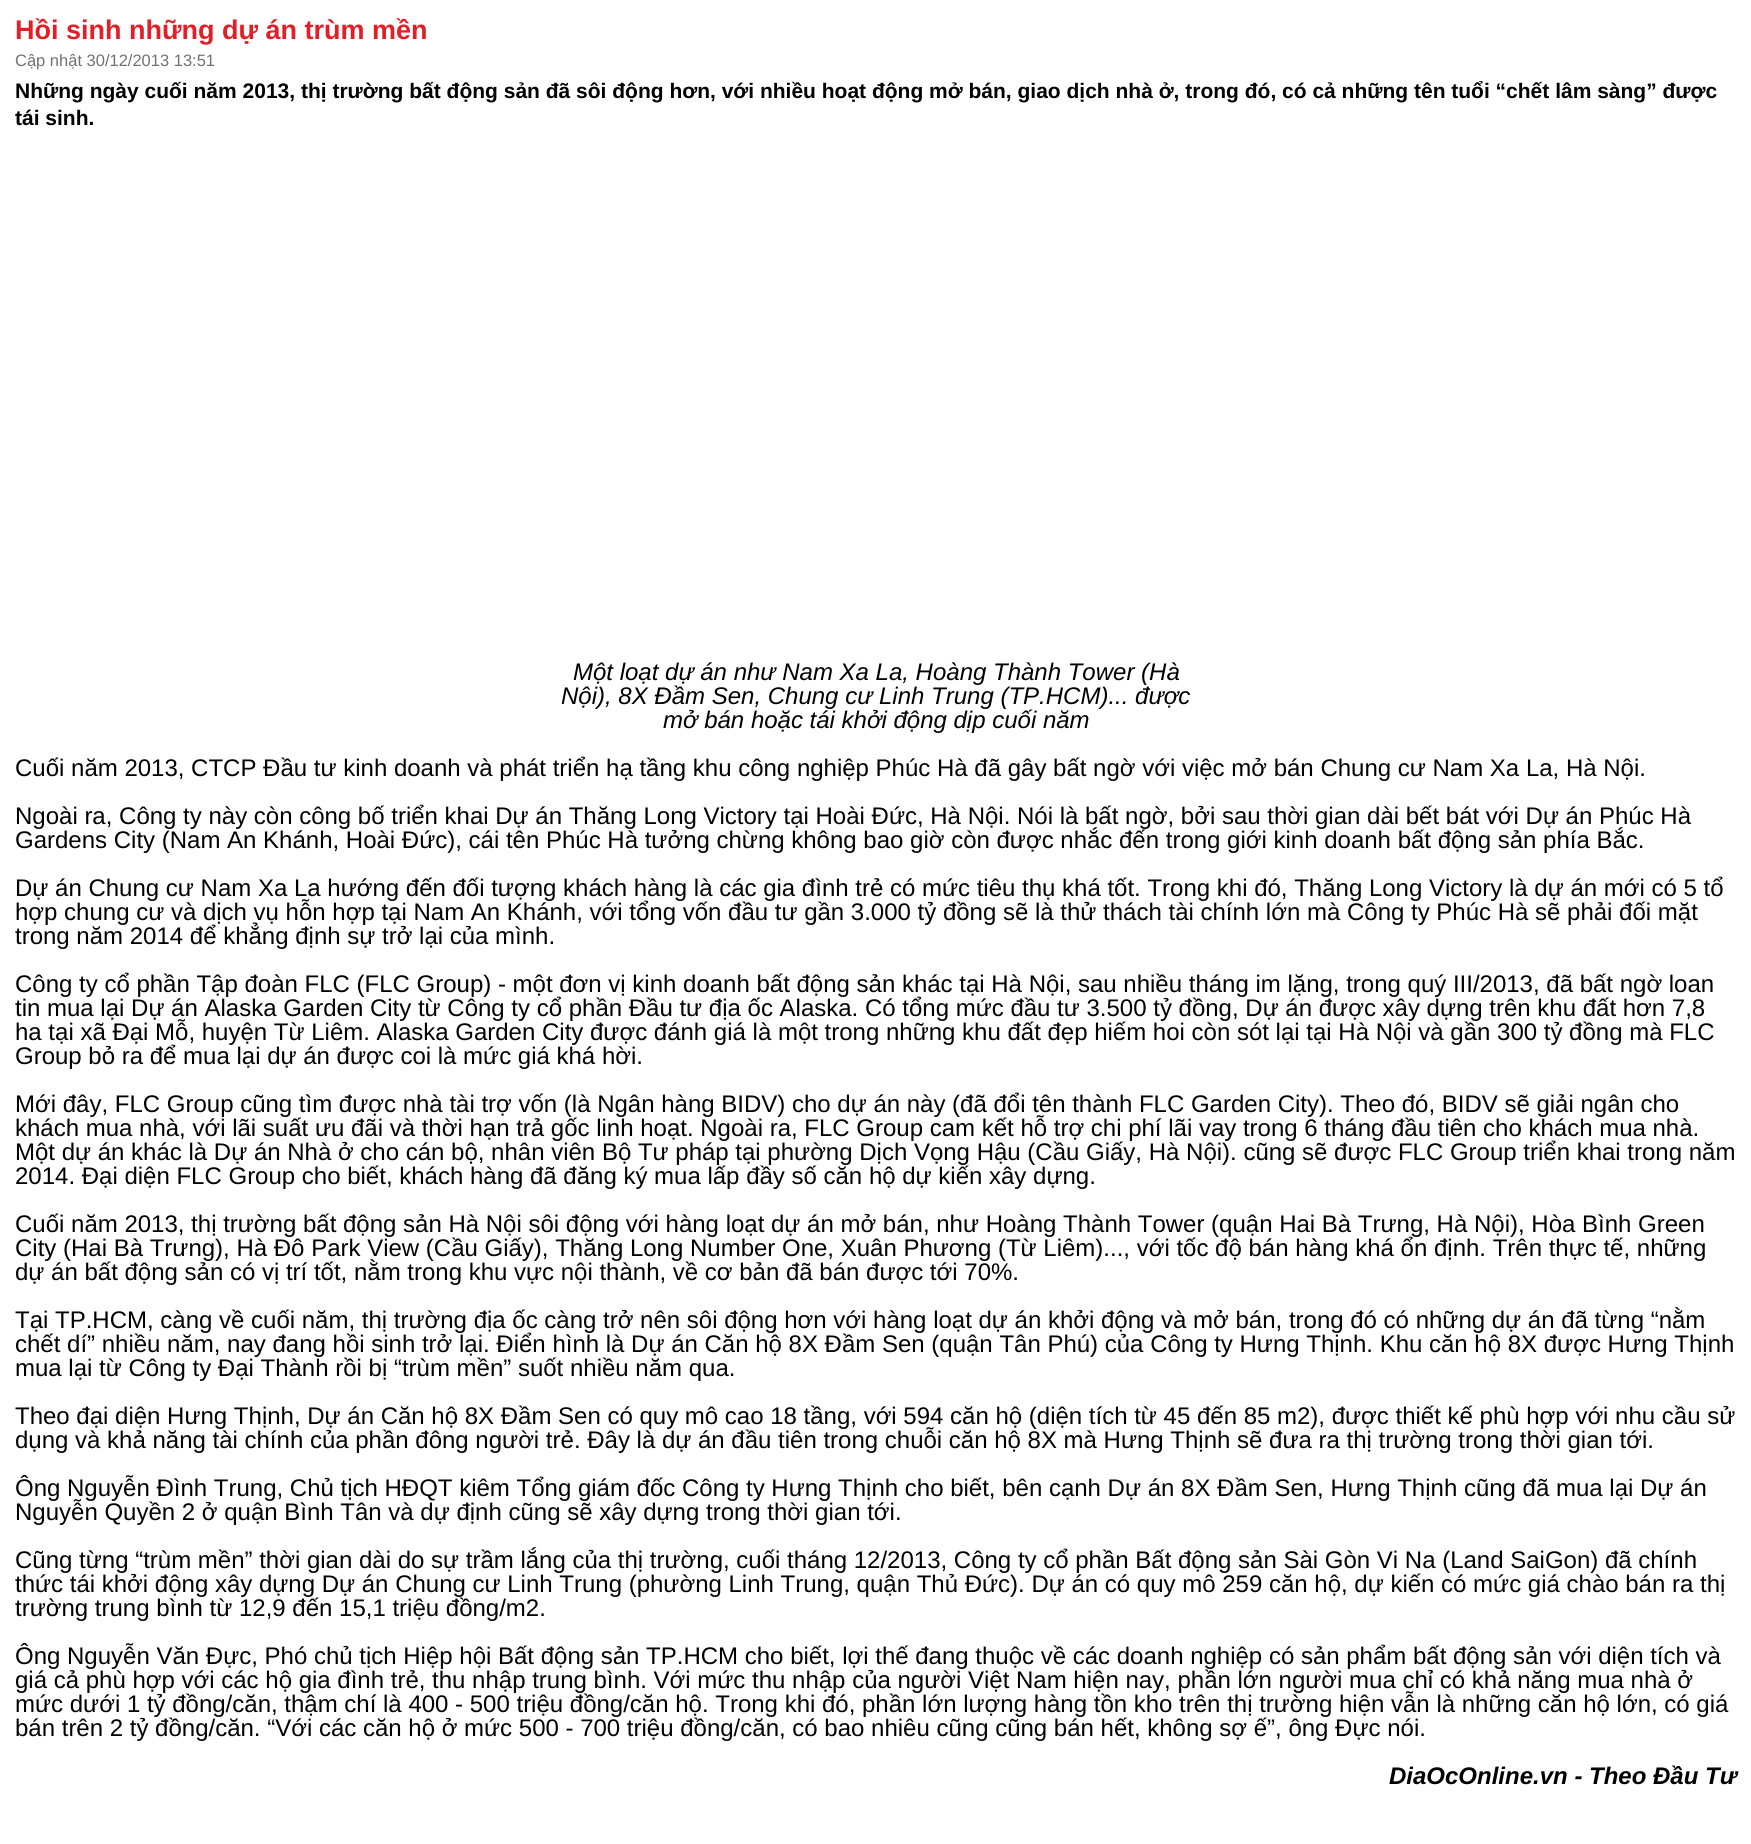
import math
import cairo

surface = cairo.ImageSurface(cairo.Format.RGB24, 1751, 1844)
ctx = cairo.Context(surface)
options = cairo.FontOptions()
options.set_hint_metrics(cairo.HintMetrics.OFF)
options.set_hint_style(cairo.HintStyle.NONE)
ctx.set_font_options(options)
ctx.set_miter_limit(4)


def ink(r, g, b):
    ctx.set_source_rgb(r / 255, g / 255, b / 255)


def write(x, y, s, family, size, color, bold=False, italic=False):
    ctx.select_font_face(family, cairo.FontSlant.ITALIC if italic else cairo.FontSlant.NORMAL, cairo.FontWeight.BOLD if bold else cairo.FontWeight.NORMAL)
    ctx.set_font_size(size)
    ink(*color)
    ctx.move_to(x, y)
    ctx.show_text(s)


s1 = dict(family="Liberation Sans", size=27, color=(228, 30, 38), bold=True)
s2 = dict(family="Liberation Sans", size=16.5, color=(113, 113, 113))
s3 = dict(family="Liberation Sans", size=21, color=(0, 0, 0), bold=True)
s4 = dict(family="Liberation Sans", size=24, color=(0, 0, 0), italic=True)
s5 = dict(family="Liberation Sans", size=24, color=(0, 0, 0))
s6 = dict(family="Liberation Sans", size=24, color=(0, 0, 0), bold=True, italic=True)

ink(255, 255, 255)
ctx.paint()
write(15, 39, "Hồi sinh những dự án trùm mền", **s1)
write(15, 66, "Cập nhật 30/12/2013 13:51", **s2)
write(15, 98, "Những ngày cuối năm 2013, thị trường bất động sản đã sôi động hơn, với nhiều hoạt động mở bán, giao dịch nhà ở, trong đó, có cả những tên tuổi “chết lâm sàng” được", **s3)
write(15, 125, "tái sinh.", **s3)
write(573, 680, "Một loạt dự án như Nam Xa La, Hoàng Thành Tower (Hà", **s4)
write(561, 704, "Nội), 8X Đầm Sen, Chung cư Linh Trung (TP.HCM)... được", **s4)
write(663, 728, "mở bán hoặc tái khởi động dịp cuối năm", **s4)
write(15, 776, "Cuối năm 2013, CTCP Đầu tư kinh doanh và phát triển hạ tầng khu công nghiệp Phúc Hà đã gây bất ngờ với việc mở bán Chung cư Nam Xa La, Hà Nội.", **s5)
write(15, 824, "Ngoài ra, Công ty này còn công bố triển khai Dự án Thăng Long Victory tại Hoài Đức, Hà Nội. Nói là bất ngờ, bởi sau thời gian dài bết bát với Dự án Phúc Hà", **s5)
write(15, 848, "Gardens City (Nam An Khánh, Hoài Đức), cái tên Phúc Hà tưởng chừng không bao giờ còn được nhắc đến trong giới kinh doanh bất động sản phía Bắc.", **s5)
write(15, 896, "Dự án Chung cư Nam Xa La hướng đến đối tượng khách hàng là các gia đình trẻ có mức tiêu thụ khá tốt. Trong khi đó, Thăng Long Victory là dự án mới có 5 tổ", **s5)
write(15, 920, "hợp chung cư và dịch vụ hỗn hợp tại Nam An Khánh, với tổng vốn đầu tư gần 3.000 tỷ đồng sẽ là thử thách tài chính lớn mà Công ty Phúc Hà sẽ phải đối mặt", **s5)
write(15, 944, "trong năm 2014 để khẳng định sự trở lại của mình.", **s5)
write(15, 992, "Công ty cổ phần Tập đoàn FLC (FLC Group) - một đơn vị kinh doanh bất động sản khác tại Hà Nội, sau nhiều tháng im lặng, trong quý III/2013, đã bất ngờ loan", **s5)
write(15, 1016, "tin mua lại Dự án Alaska Garden City từ Công ty cổ phần Đầu tư địa ốc Alaska. Có tổng mức đầu tư 3.500 tỷ đồng, Dự án được xây dựng trên khu đất hơn 7,8", **s5)
write(15, 1040, "ha tại xã Đại Mỗ, huyện Từ Liêm. Alaska Garden City được đánh giá là một trong những khu đất đẹp hiếm hoi còn sót lại tại Hà Nội và gần 300 tỷ đồng mà FLC", **s5)
write(15, 1064, "Group bỏ ra để mua lại dự án được coi là mức giá khá hời.", **s5)
write(15, 1112, "Mới đây, FLC Group cũng tìm được nhà tài trợ vốn (là Ngân hàng BIDV) cho dự án này (đã đổi tên thành FLC Garden City). Theo đó, BIDV sẽ giải ngân cho", **s5)
write(15, 1136, "khách mua nhà, với lãi suất ưu đãi và thời hạn trả gốc linh hoạt. Ngoài ra, FLC Group cam kết hỗ trợ chi phí lãi vay trong 6 tháng đầu tiên cho khách mua nhà.", **s5)
write(15, 1160, "Một dự án khác là Dự án Nhà ở cho cán bộ, nhân viên Bộ Tư pháp tại phường Dịch Vọng Hậu (Cầu Giấy, Hà Nội). cũng sẽ được FLC Group triển khai trong năm", **s5)
write(15, 1184, "2014. Đại diện FLC Group cho biết, khách hàng đã đăng ký mua lấp đầy số căn hộ dự kiến xây dựng.", **s5)
write(15, 1232, "Cuối năm 2013, thị trường bất động sản Hà Nội sôi động với hàng loạt dự án mở bán, như Hoàng Thành Tower (quận Hai Bà Trưng, Hà Nội), Hòa Bình Green", **s5)
write(15, 1256, "City (Hai Bà Trưng), Hà Đô Park View (Cầu Giấy), Thăng Long Number One, Xuân Phương (Từ Liêm)..., với tốc độ bán hàng khá ổn định. Trên thực tế, những", **s5)
write(15, 1280, "dự án bất động sản có vị trí tốt, nằm trong khu vực nội thành, về cơ bản đã bán được tới 70%.", **s5)
write(15, 1328, "Tại TP.HCM, càng về cuối năm, thị trường địa ốc càng trở nên sôi động hơn với hàng loạt dự án khởi động và mở bán, trong đó có những dự án đã từng “nằm", **s5)
write(15, 1352, "chết dí” nhiều năm, nay đang hồi sinh trở lại. Điển hình là Dự án Căn hộ 8X Đầm Sen (quận Tân Phú) của Công ty Hưng Thịnh. Khu căn hộ 8X được Hưng Thịnh", **s5)
write(15, 1376, "mua lại từ Công ty Đại Thành rồi bị “trùm mền” suốt nhiều năm qua.", **s5)
write(15, 1424, "Theo đại diện Hưng Thịnh, Dự án Căn hộ 8X Đầm Sen có quy mô cao 18 tầng, với 594 căn hộ (diện tích từ 45 đến 85 m2), được thiết kế phù hợp với nhu cầu sử", **s5)
write(15, 1448, "dụng và khả năng tài chính của phần đông người trẻ. Đây là dự án đầu tiên trong chuỗi căn hộ 8X mà Hưng Thịnh sẽ đưa ra thị trường trong thời gian tới.", **s5)
write(15, 1496, "Ông Nguyễn Đình Trung, Chủ tịch HĐQT kiêm Tổng giám đốc Công ty Hưng Thịnh cho biết, bên cạnh Dự án 8X Đầm Sen, Hưng Thịnh cũng đã mua lại Dự án", **s5)
write(15, 1520, "Nguyễn Quyền 2 ở quận Bình Tân và dự định cũng sẽ xây dựng trong thời gian tới.", **s5)
write(15, 1568, "Cũng từng “trùm mền” thời gian dài do sự trầm lắng của thị trường, cuối tháng 12/2013, Công ty cổ phần Bất động sản Sài Gòn Vi Na (Land SaiGon) đã chính", **s5)
write(15, 1592, "thức tái khởi động xây dựng Dự án Chung cư Linh Trung (phường Linh Trung, quận Thủ Đức). Dự án có quy mô 259 căn hộ, dự kiến có mức giá chào bán ra thị", **s5)
write(15, 1616, "trường trung bình từ 12,9 đến 15,1 triệu đồng/m2.", **s5)
write(15, 1664, "Ông Nguyễn Văn Đực, Phó chủ tịch Hiệp hội Bất động sản TP.HCM cho biết, lợi thế đang thuộc về các doanh nghiệp có sản phẩm bất động sản với diện tích và", **s5)
write(15, 1688, "giá cả phù hợp với các hộ gia đình trẻ, thu nhập trung bình. Với mức thu nhập của người Việt Nam hiện nay, phần lớn người mua chỉ có khả năng mua nhà ở", **s5)
write(15, 1712, "mức dưới 1 tỷ đồng/căn, thậm chí là 400 - 500 triệu đồng/căn hộ. Trong khi đó, phần lớn lượng hàng tồn kho trên thị trường hiện vẫn là những căn hộ lớn, có giá", **s5)
write(15, 1736, "bán trên 2 tỷ đồng/căn. “Với các căn hộ ở mức 500 - 700 triệu đồng/căn, có bao nhiêu cũng cũng bán hết, không sợ ế”, ông Đực nói.", **s5)
write(1389, 1784, "DiaOcOnline.vn - Theo Đầu Tư", **s6)
surface.write_to_png("screenshot.png")
